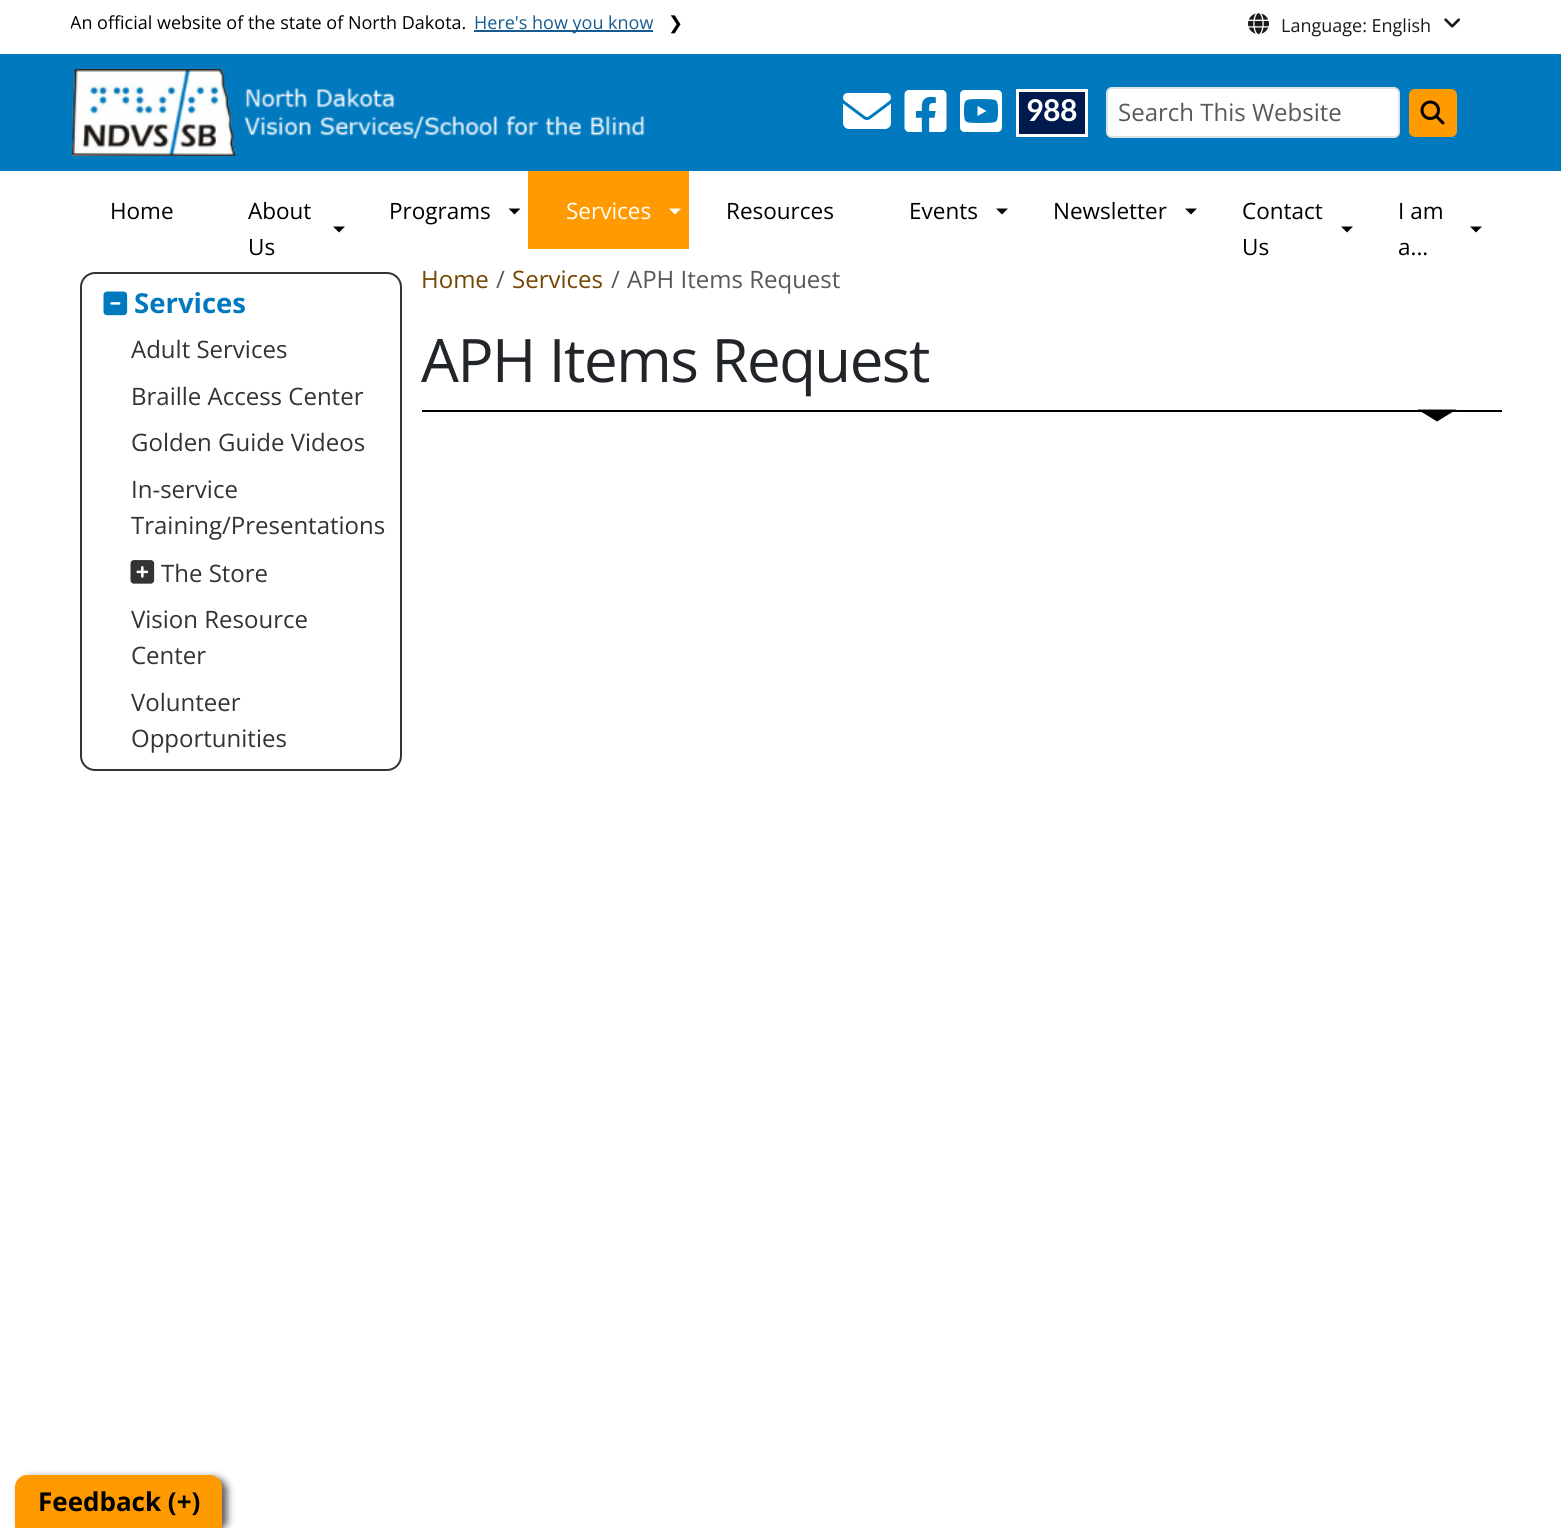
import math
import cairo

surface = cairo.ImageSurface(cairo.Format.RGB24, 1561, 1528)
ctx = cairo.Context(surface)
options = cairo.FontOptions()
options.set_hint_metrics(cairo.HintMetrics.OFF)
options.set_hint_style(cairo.HintStyle.NONE)
ctx.set_font_options(options)
ctx.set_miter_limit(4)


def ink(r, g, b):
    ctx.set_source_rgb(r / 255, g / 255, b / 255)


def write(x, y, s, family, size, color, bold=False, italic=False):
    ctx.select_font_face(family, cairo.FontSlant.ITALIC if italic else cairo.FontSlant.NORMAL, cairo.FontWeight.BOLD if bold else cairo.FontWeight.NORMAL)
    ctx.set_font_size(size)
    ink(*color)
    ctx.move_to(x, y)
    ctx.show_text(s)


def write_spaced(x, y, s, letter, word):
    ctx.move_to(x, y)
    for ch in s:
        ctx.show_text(ch)
        ctx.rel_move_to(letter + word * (ch == ' '), 0)


def block(x, y, w, h, *color):
    ink(*color)
    ctx.rectangle(x, y, w, h)
    ctx.fill()


def round_path(x, y, w, h, r):
    ctx.new_sub_path()
    for i, (u, v) in enumerate([(x + w - r, y + h - r), (x + r, y + h - r), (x + r, y + r), (x + w - r, y + r)]):
        ctx.arc(u, v, r, i * math.pi / 2, (i + 1) * math.pi / 2)
    ctx.close_path()


def blur_box(x, y, w, h, r, blur, alpha):
    ctx.push_group_with_content(cairo.Content.ALPHA)
    ctx.set_operator(cairo.Operator.SOURCE)
    for i in range(15, -16, -2):
        e = blur * i / 6
        if min(w, h) + 2 * e > 0:
            ctx.set_source_rgba(0, 0, 0, alpha * math.erfc((i - 1) / 8.5) / 2)
            round_path(x - e, y - e, w + 2 * e, h + 2 * e, max(0, min(r + e + blur * .6, min(w, h) / 2 + e)))
            ctx.fill()
    ctx.mask(ctx.pop_group())


def paste(path, x, y, w, h):
    ctx.save()
    ctx.set_source_surface(cairo.ImageSurface.create_from_png(path), x, y)
    ctx.rectangle(x, y, w, h)
    ctx.fill()
    ctx.restore()


s1 = dict(family="Open Sans", size=18, color=(0, 0, 0))
s2 = dict(family="Open Sans", size=18, color=(22, 92, 146))
s3 = dict(family="DejaVu Sans", size=18, color=(0, 0, 0))
s4 = dict(family="Open Sans", size=18, color=(26, 26, 26))
s5 = dict(family="Aleo", size=30, color=(255, 255, 255), bold=True)
s6 = dict(family="Open Sans", size=24, color=(89, 89, 89))
s7 = dict(family="Open Sans", size=22.5, color=(0, 0, 0))
s8 = dict(family="Open Sans", size=22.5, color=(255, 255, 255))
s9 = dict(family="Open Sans", size=27.5, color=(0, 121, 191), bold=True)
s10 = dict(family="Open Sans", size=24, color=(51, 51, 51))
s11 = dict(family="Open Sans", size=24, color=(117, 70, 0))
s12 = dict(family="Open Sans", size=24, color=(89, 92, 95))
s13 = dict(family="Open Sans", size=26, color=(0, 0, 0), bold=True)

ink(255, 255, 255)
ctx.paint()
ctx.save()
ctx.rectangle(71, 9, 943, 27)
ctx.clip()
write(70, 29, "An official website of the state of North Dakota.", **s1)
ctx.restore()
block(474, 30, 179, 2, 22, 92, 146)
write(474, 29, "Here's how you know", **s2)
write(668, 29, "❯", **s3)
paste("pic1.png", 1248, 13, 21, 22)
write(1281, 32, "Language: English", **s4)
paste("pic2.png", 1444, 18, 16, 10)
block(0, 54, 1561, 117, 0, 121, 191)
paste("pic3.png", 72, 69, 573, 87)
paste("pic4.png", 843, 93, 48, 36)
paste("pic5.png", 904, 90, 43, 42)
paste("pic6.png", 960, 90, 42, 42)
ink(0, 26, 78)
ctx.rectangle(1017.5, 90.5, 69, 45)
ctx.fill_preserve()
ink(255, 255, 255)
ctx.set_line_width(3)
ctx.stroke()
write(1027, 121, "988", **s5)
round_path(1107, 88, 292, 49, 5)
ctx.fill_preserve()
ink(222, 226, 230)
ctx.set_line_width(2)
ctx.stroke()
write(1118, 121, "Search This Website", **s6)
ink(255, 154, 0)
round_path(1409, 89, 48, 48, 6)
ctx.fill()
paste("pic7.png", 1420, 100, 25, 25)
write(110, 219, "Home", **s7)
write(248, 219, "About", **s7)
ctx.new_path()
ctx.move_to(333, 226.5)
ctx.line_to(345, 226.5)
ctx.line_to(339, 232.5)
ctx.close_path()
ctx.fill()
write(248, 255, "Us", **s7)
write(389, 219, "Programs", **s7)
ctx.new_path()
ctx.move_to(508.5, 208.5)
ctx.line_to(520.5, 208.5)
ctx.line_to(514.5, 214.5)
ctx.close_path()
ctx.fill()
block(528, 171, 161, 78, 255, 154, 0)
write(566, 219, "Services", **s8)
ctx.new_path()
ctx.move_to(669, 208.5)
ctx.line_to(681, 208.5)
ctx.line_to(675, 214.5)
ctx.close_path()
ctx.fill()
write(726, 219, "Resources", **s7)
write(909, 219, "Events", **s7)
ctx.new_path()
ctx.move_to(996, 208.5)
ctx.line_to(1008, 208.5)
ctx.line_to(1002, 214.5)
ctx.close_path()
ctx.fill()
write(1053, 219, "Newsletter", **s7)
ctx.new_path()
ctx.move_to(1185, 208.5)
ctx.line_to(1197, 208.5)
ctx.line_to(1191, 214.5)
ctx.close_path()
ctx.fill()
write(1242, 219, "Contact", **s7)
ctx.new_path()
ctx.move_to(1341, 226.5)
ctx.line_to(1353, 226.5)
ctx.line_to(1347, 232.5)
ctx.close_path()
ctx.fill()
write(1242, 255, "Us", **s7)
write(1398, 219, "I am", **s7)
ctx.new_path()
ctx.move_to(1470, 226.5)
ctx.line_to(1482, 226.5)
ctx.line_to(1476, 232.5)
ctx.close_path()
ctx.fill()
write(1398, 255, "a...", **s7)
round_path(81, 273, 320, 497, 14)
ink(51, 51, 51)
ctx.stroke()
paste("pic8.png", 103, 291, 25, 25)
write(134, 313, "Services", **s9)
write(131, 358, "Adult Services", **s10)
write(131, 405, "Braille Access Center", **s10)
write(131, 451, "Golden Guide Videos", **s10)
write(131, 498, "In-service", **s10)
write(131, 534, "Training/Presentations", **s10)
paste("pic9.png", 130, 560, 25, 24)
write(161, 582, "The Store", **s10)
write(131, 628, "Vision Resource", **s10)
write(131, 664, "Center", **s10)
write(131, 711, "Volunteer", **s10)
write(131, 747, "Opportunities", **s10)
write(421, 288, "Home", **s11)
write(496, 288, "/", **s12)
write(512, 288, "Services", **s11)
write(611, 288, "/", **s12)
write(627, 288, "APH Items Request", **s6)
block(422, 410, 1080, 2, 0, 0, 0)
ctx.set_font_size(60)
ink(33, 37, 41)
write_spaced(421, 382, "APH Items Request", -1.5, 0)
ink(0, 0, 0)
ctx.new_path()
ctx.move_to(1417.5, 409.5)
ctx.line_to(1456.5, 409.5)
ctx.line_to(1437, 421.5)
ctx.close_path()
ctx.fill()
ink(85, 85, 85)
blur_box(20, 1478, 207, 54, 12, 4, 1)
ink(255, 154, 0)
ctx.new_path()
ctx.move_to(27, 1475)
ctx.line_to(210, 1475)
ctx.curve_to(216.5, 1475, 222, 1480.5, 222, 1487)
ctx.line_to(222, 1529)
ctx.line_to(15, 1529)
ctx.line_to(15, 1487)
ctx.curve_to(15, 1480.5, 20.5, 1475, 27, 1475)
ctx.close_path()
ctx.fill()
write(38, 1511, "Feedback (+)", **s13)
surface.write_to_png("screenshot.png")
